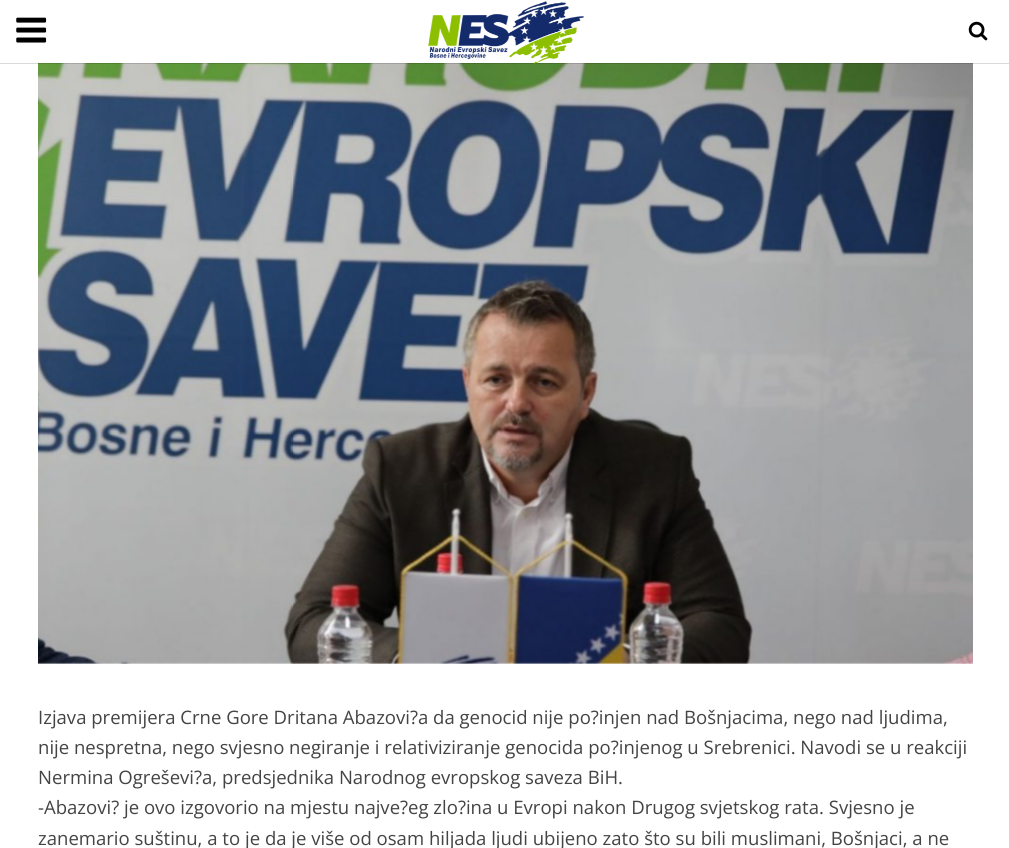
import math
import cairo

surface = cairo.ImageSurface(cairo.Format.RGB24, 1009, 848)
ctx = cairo.Context(surface)
options = cairo.FontOptions()
options.set_hint_metrics(cairo.HintMetrics.OFF)
options.set_hint_style(cairo.HintStyle.NONE)
ctx.set_font_options(options)
ctx.set_miter_limit(4)


def ink(r, g, b):
    ctx.set_source_rgb(r / 255, g / 255, b / 255)


def write(x, y, s, family, size, color, bold=False, italic=False):
    ctx.select_font_face(family, cairo.FontSlant.ITALIC if italic else cairo.FontSlant.NORMAL, cairo.FontWeight.BOLD if bold else cairo.FontWeight.NORMAL)
    ctx.set_font_size(size)
    ink(*color)
    ctx.move_to(x, y)
    ctx.show_text(s)


def block(x, y, w, h, *color):
    ink(*color)
    ctx.rectangle(x, y, w, h)
    ctx.fill()


def paste(path, x, y, w, h):
    ctx.save()
    ctx.set_source_surface(cairo.ImageSurface.create_from_png(path), x, y)
    ctx.rectangle(x, y, w, h)
    ctx.fill()
    ctx.restore()


s1 = dict(family="Open Sans", size=18.55, color=(68, 68, 68))

ink(255, 255, 255)
ctx.paint()
block(38, 662, 935, 2, 243, 243, 243)
paste("pic4.png", 38, 63, 935, 601)
ctx.set_source_rgba(0, 0, 0, 0.15)
ctx.new_path()
ctx.move_to(0, -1)
ctx.line_to(0, 0)
ctx.line_to(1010, 0)
ctx.line_to(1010, 62)
ctx.line_to(0, 62)
ctx.line_to(0, 64)
ctx.line_to(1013, 64)
ctx.line_to(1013, -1)
ctx.close_path()
ctx.fill()
block(0, 62, 1009, 1, 255, 255, 255)
paste("pic1.png", 16, 17, 31, 26)
paste("pic2.png", 427, 1, 157, 63)
paste("pic3.png", 968, 21, 20, 20)
write(38, 724, "Izjava premijera Crne Gore Dritana Abazovi?a da genocid nije po?injen nad Bošnjacima, nego nad ljudima,", **s1)
write(38, 754, "nije nespretna, nego svjesno negiranje i relativiziranje genocida po?injenog u Srebrenici. Navodi se u reakciji", **s1)
write(38, 784, "Nermina Ogreševi?a, predsjednika Narodnog evropskog saveza BiH.", **s1)
write(38, 814, "-Abazovi? je ovo izgovorio na mjestu najve?eg zlo?ina u Evropi nakon Drugog svjetskog rata. Svjesno je", **s1)
write(38, 845, "zanemario suštinu, a to je da je više od osam hiljada ljudi ubijeno zato što su bili muslimani, Bošnjaci, a ne", **s1)
surface.write_to_png("screenshot.png")
